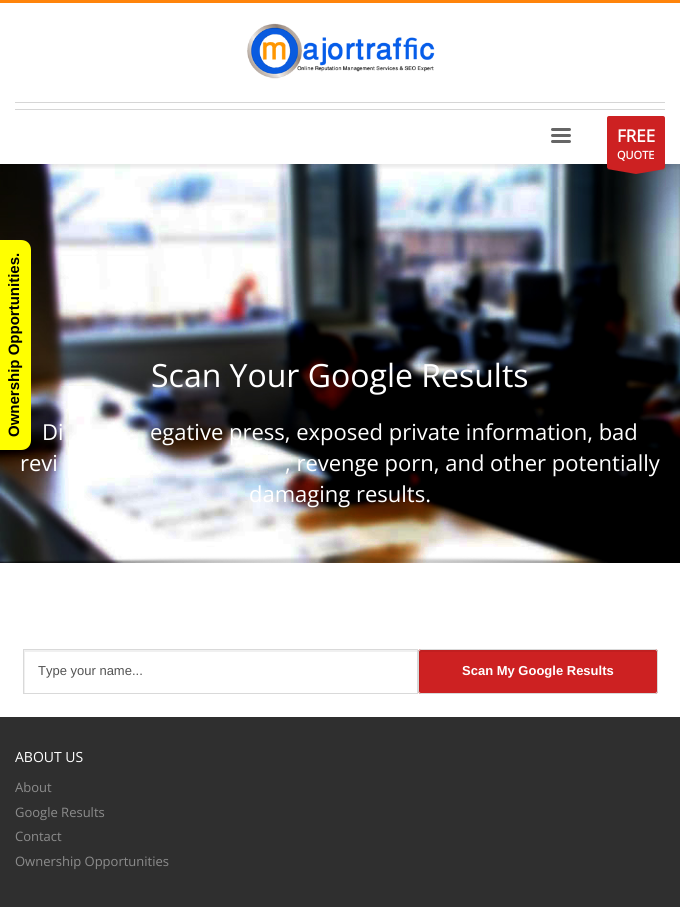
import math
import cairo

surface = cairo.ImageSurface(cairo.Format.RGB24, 680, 907)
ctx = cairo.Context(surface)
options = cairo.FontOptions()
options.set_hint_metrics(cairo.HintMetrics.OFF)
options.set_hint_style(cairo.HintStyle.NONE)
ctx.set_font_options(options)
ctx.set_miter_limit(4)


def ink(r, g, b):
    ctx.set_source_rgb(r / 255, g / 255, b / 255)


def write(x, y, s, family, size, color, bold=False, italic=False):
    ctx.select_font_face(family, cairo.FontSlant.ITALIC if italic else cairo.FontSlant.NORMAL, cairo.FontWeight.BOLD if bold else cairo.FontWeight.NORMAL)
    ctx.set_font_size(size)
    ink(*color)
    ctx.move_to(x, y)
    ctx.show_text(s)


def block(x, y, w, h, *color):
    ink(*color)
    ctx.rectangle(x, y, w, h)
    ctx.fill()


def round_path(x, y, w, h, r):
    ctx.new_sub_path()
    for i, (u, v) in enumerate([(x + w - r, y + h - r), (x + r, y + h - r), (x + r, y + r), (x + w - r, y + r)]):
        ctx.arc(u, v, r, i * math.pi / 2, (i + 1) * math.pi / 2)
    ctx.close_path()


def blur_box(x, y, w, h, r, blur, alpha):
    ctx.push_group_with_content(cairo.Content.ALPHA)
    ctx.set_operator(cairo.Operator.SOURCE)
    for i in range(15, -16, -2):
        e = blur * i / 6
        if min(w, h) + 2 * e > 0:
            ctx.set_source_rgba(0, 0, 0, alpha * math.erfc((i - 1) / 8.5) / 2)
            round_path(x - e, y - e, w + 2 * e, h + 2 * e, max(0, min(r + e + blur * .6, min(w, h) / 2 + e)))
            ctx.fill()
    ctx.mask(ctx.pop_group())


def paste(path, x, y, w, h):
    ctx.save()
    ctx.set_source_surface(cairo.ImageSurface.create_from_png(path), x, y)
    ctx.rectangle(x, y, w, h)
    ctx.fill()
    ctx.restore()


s1 = dict(family="Open Sans", size=17, color=(255, 255, 255), bold=True)
s2 = dict(family="Open Sans", size=11, color=(255, 255, 255), bold=True)
s3 = dict(family="Open Sans", size=32, color=(255, 255, 255))
s4 = dict(family="Open Sans", size=22, color=(255, 255, 255))
s5 = dict(family="Liberation Sans", size=13, color=(83, 83, 83))
s6 = dict(family="Liberation Sans", size=13, color=(255, 255, 255), bold=True)
s7 = dict(family="Open Sans", size=14, color=(255, 255, 255))
s8 = dict(family="Open Sans", size=13, color=(140, 140, 140))
s9 = dict(family="Liberation Sans", size=15, color=(0, 0, 0), bold=True)

ink(255, 255, 255)
ctx.paint()
paste("pic2.png", 0, 164, 680, 399)
ctx.save()
ctx.rectangle(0, 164, 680, 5)
ctx.clip()
ink(0, 0, 0)
blur_box(0, 3, 680, 164, 0, 2.5, 0.1)
ctx.restore()
block(0, 0, 680, 3, 255, 132, 10)
paste("pic1.png", 247, 23, 188, 56)
block(15, 102, 650, 1, 214, 214, 214)
block(15, 109, 650, 1, 214, 214, 214)
ink(102, 102, 102)
round_path(551, 128, 20, 3, 1.5)
ctx.fill()
round_path(551, 134, 20, 3, 1.5)
ctx.fill()
round_path(551, 140, 20, 3, 1.5)
ctx.fill()
ink(205, 33, 34)
round_path(607, 116, 58, 53, 2)
ctx.fill()
write(617, 142, "FREE", **s1)
write(617, 159, "QUOTE", **s2)
ink(205, 33, 34)
ctx.set_fill_rule(cairo.FillRule.EVEN_ODD)
ctx.new_path()
ctx.move_to(665, 169)
ctx.line_to(636, 174)
ctx.line_to(607, 169)
ctx.close_path()
ctx.fill()
write(151, 387, "Scan Your Google Results", **s3)
write(42, 440, "Di", **s4)
write(150, 440, "egative press, exposed private information, bad", **s4)
write(20, 471, "revi", **s4)
write(285, 471, ", revenge porn, and other potentially", **s4)
write(249, 502, "damaging results.", **s4)
paste("pic3.png", 0, 556, 605, 7)
ctx.save()
ctx.set_fill_rule(cairo.FillRule.WINDING)
ctx.rectangle(24, 650, 393, 43)
ctx.clip()
ink(240, 240, 240)
ctx.set_fill_rule(cairo.FillRule.EVEN_ODD)
ctx.new_path()
ctx.move_to(-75, 551)
ctx.line_to(516, 551)
ctx.line_to(516, 792)
ctx.line_to(-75, 792)
ctx.close_path()
ctx.move_to(25, 652)
ctx.line_to(418, 652)
ctx.line_to(418, 695)
ctx.line_to(25, 695)
ctx.close_path()
ctx.fill()
ctx.restore()
ctx.rectangle(23.5, 649.5, 394, 44)
ink(217, 217, 217)
ctx.set_line_width(1)
ctx.stroke()
write(38, 675, "Type your name...", **s5)
ink(205, 33, 34)
round_path(418, 649, 240, 45, 3)
ctx.fill()
ink(193, 31, 32)
ctx.set_fill_rule(cairo.FillRule.WINDING)
ctx.new_path()
ctx.move_to(422, 652)
ctx.line_to(657, 652)
ctx.curve_to(657, 651, 656, 650, 655, 650)
ctx.line_to(421, 650)
ctx.curve_to(420, 650, 419, 651, 419, 652)
ctx.line_to(419, 691)
ctx.curve_to(419, 692, 419, 692, 420, 693)
ctx.line_to(420, 654)
ctx.curve_to(420, 653, 421, 652, 422, 652)
ctx.close_path()
ctx.fill()
round_path(418.5, 649.5, 239, 44, 2.5)
ink(217, 217, 217)
ctx.stroke()
write(462, 675, "Scan My Google Results", **s6)
block(0, 717, 680, 190, 47, 47, 47)
write(15, 762, "ABOUT US", **s7)
write(15, 792, "About", **s8)
write(15, 817, "Google Results", **s8)
write(15, 841, "Contact", **s8)
write(15, 866, "Ownership Opportunities", **s8)
ink(255, 255, 0)
ctx.new_path()
ctx.move_to(-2, 450)
ctx.line_to(-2, 240)
ctx.line_to(21, 240)
ctx.curve_to(27, 240, 31, 244, 31, 250)
ctx.line_to(31, 440)
ctx.curve_to(31, 446, 27, 450, 21, 450)
ctx.close_path()
ctx.fill()
ctx.save()
ctx.translate(19, 437)
ctx.rotate(-90 * math.pi / 180)
write(0, 0, "Ownership Opportunities.", **s9)
ctx.restore()
surface.write_to_png("screenshot.png")
